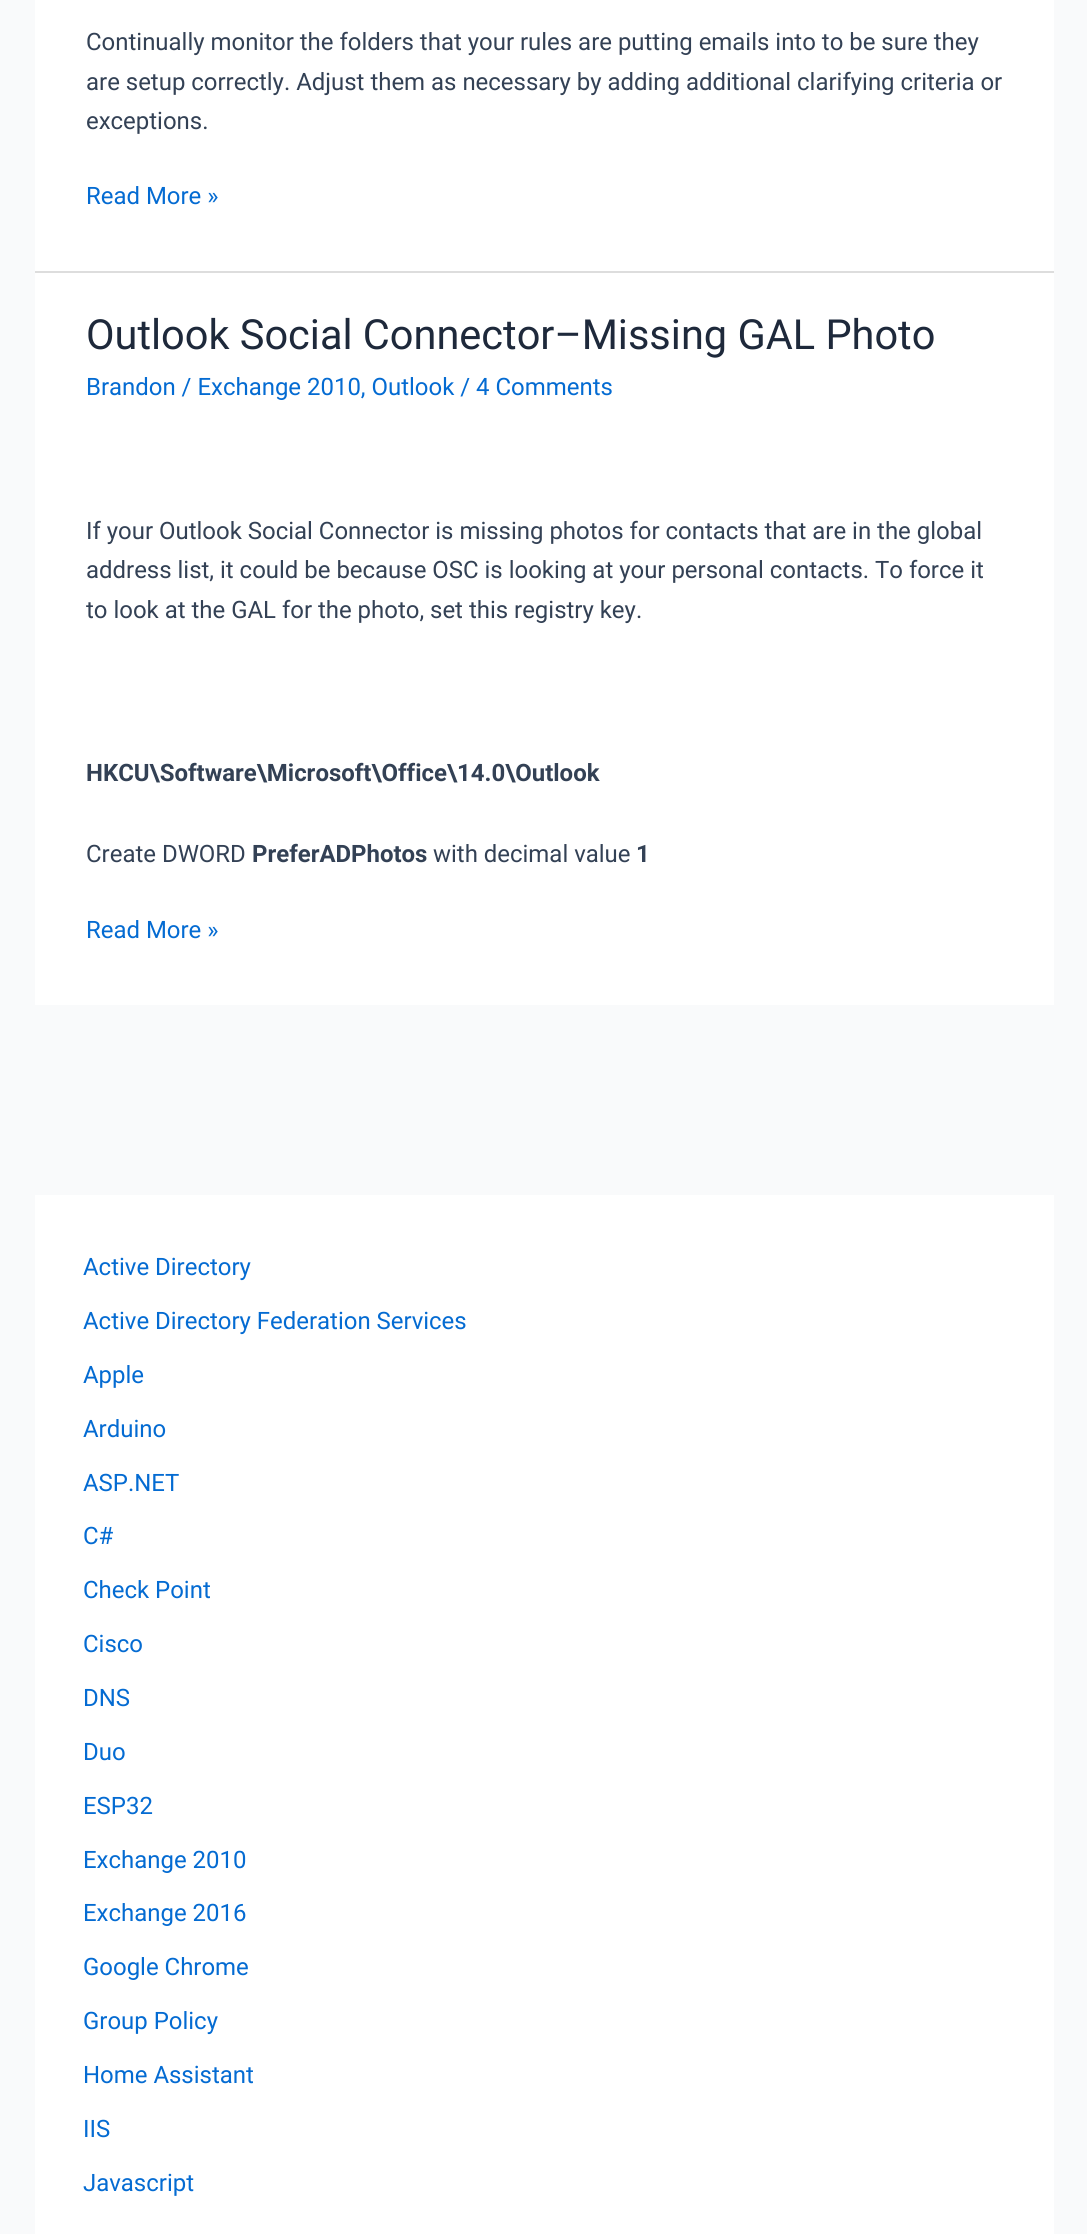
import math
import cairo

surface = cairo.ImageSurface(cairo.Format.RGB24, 1087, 2234)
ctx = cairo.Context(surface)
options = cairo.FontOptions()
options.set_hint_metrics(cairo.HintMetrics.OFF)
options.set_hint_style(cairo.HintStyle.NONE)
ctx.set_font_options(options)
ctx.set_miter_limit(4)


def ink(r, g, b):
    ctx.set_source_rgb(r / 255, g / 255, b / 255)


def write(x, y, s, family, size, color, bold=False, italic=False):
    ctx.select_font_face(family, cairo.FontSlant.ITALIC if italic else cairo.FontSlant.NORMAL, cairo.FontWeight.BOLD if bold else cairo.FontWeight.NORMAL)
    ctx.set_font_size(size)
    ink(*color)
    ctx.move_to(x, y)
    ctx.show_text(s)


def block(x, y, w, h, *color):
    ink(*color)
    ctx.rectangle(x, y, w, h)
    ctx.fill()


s1 = dict(family="Roboto", size=23.95, color=(51, 65, 85))
s2 = dict(family="Roboto", size=23.95, color=(4, 107, 210))
s3 = dict(family="Roboto", size=41.5, color=(30, 41, 59))
s4 = dict(family="Roboto", size=23.95, color=(51, 65, 85), bold=True)

ink(249, 250, 251)
ctx.paint()
block(35, 0, 1019, 271, 255, 255, 255)
block(35, 271, 1019, 2, 221, 221, 221)
write(86, 50, "Continually monitor the folders that your rules are putting emails into to be sure they", **s1)
write(86, 90, "are setup correctly. Adjust them as necessary by adding additional clarifying criteria or", **s1)
write(86, 129, "exceptions.", **s1)
write(86, 204, "Read More »", **s2)
block(35, 273, 1019, 732, 255, 255, 255)
write(86, 349, "Outlook Social Connector–Missing GAL Photo", **s3)
write(86, 395, "Brandon / Exchange 2010, Outlook / 4 Comments", **s2)
write(86, 539, "If your Outlook Social Connector is missing photos for contacts that are in the global", **s1)
write(86, 578, "address list, it could be because OSC is looking at your personal contacts. To force it", **s1)
write(86, 618, "to look at the GAL for the photo, set this registry key.", **s1)
write(86, 781, "HKCU\\Software\\Microsoft\\Office\\14.0\\Outlook", **s4)
write(86, 862, "Create DWORD", **s1)
write(252, 862, "PreferADPhotos", **s4)
write(433, 862, "with decimal value", **s1)
write(636, 862, "1", **s4)
write(86, 938, "Read More »", **s2)
block(35, 1195, 1019, 1039, 255, 255, 255)
write(83, 1275, "Active Directory", **s2)
write(83, 1329, "Active Directory Federation Services", **s2)
write(83, 1383, "Apple", **s2)
write(83, 1437, "Arduino", **s2)
write(83, 1491, "ASP.NET", **s2)
write(83, 1544, "C#", **s2)
write(83, 1598, "Check Point", **s2)
write(83, 1652, "Cisco", **s2)
write(83, 1706, "DNS", **s2)
write(83, 1760, "Duo", **s2)
write(83, 1814, "ESP32", **s2)
write(83, 1868, "Exchange 2010", **s2)
write(83, 1921, "Exchange 2016", **s2)
write(83, 1975, "Google Chrome", **s2)
write(83, 2029, "Group Policy", **s2)
write(83, 2083, "Home Assistant", **s2)
write(83, 2137, "IIS", **s2)
write(83, 2191, "Javascript", **s2)
surface.write_to_png("screenshot.png")
